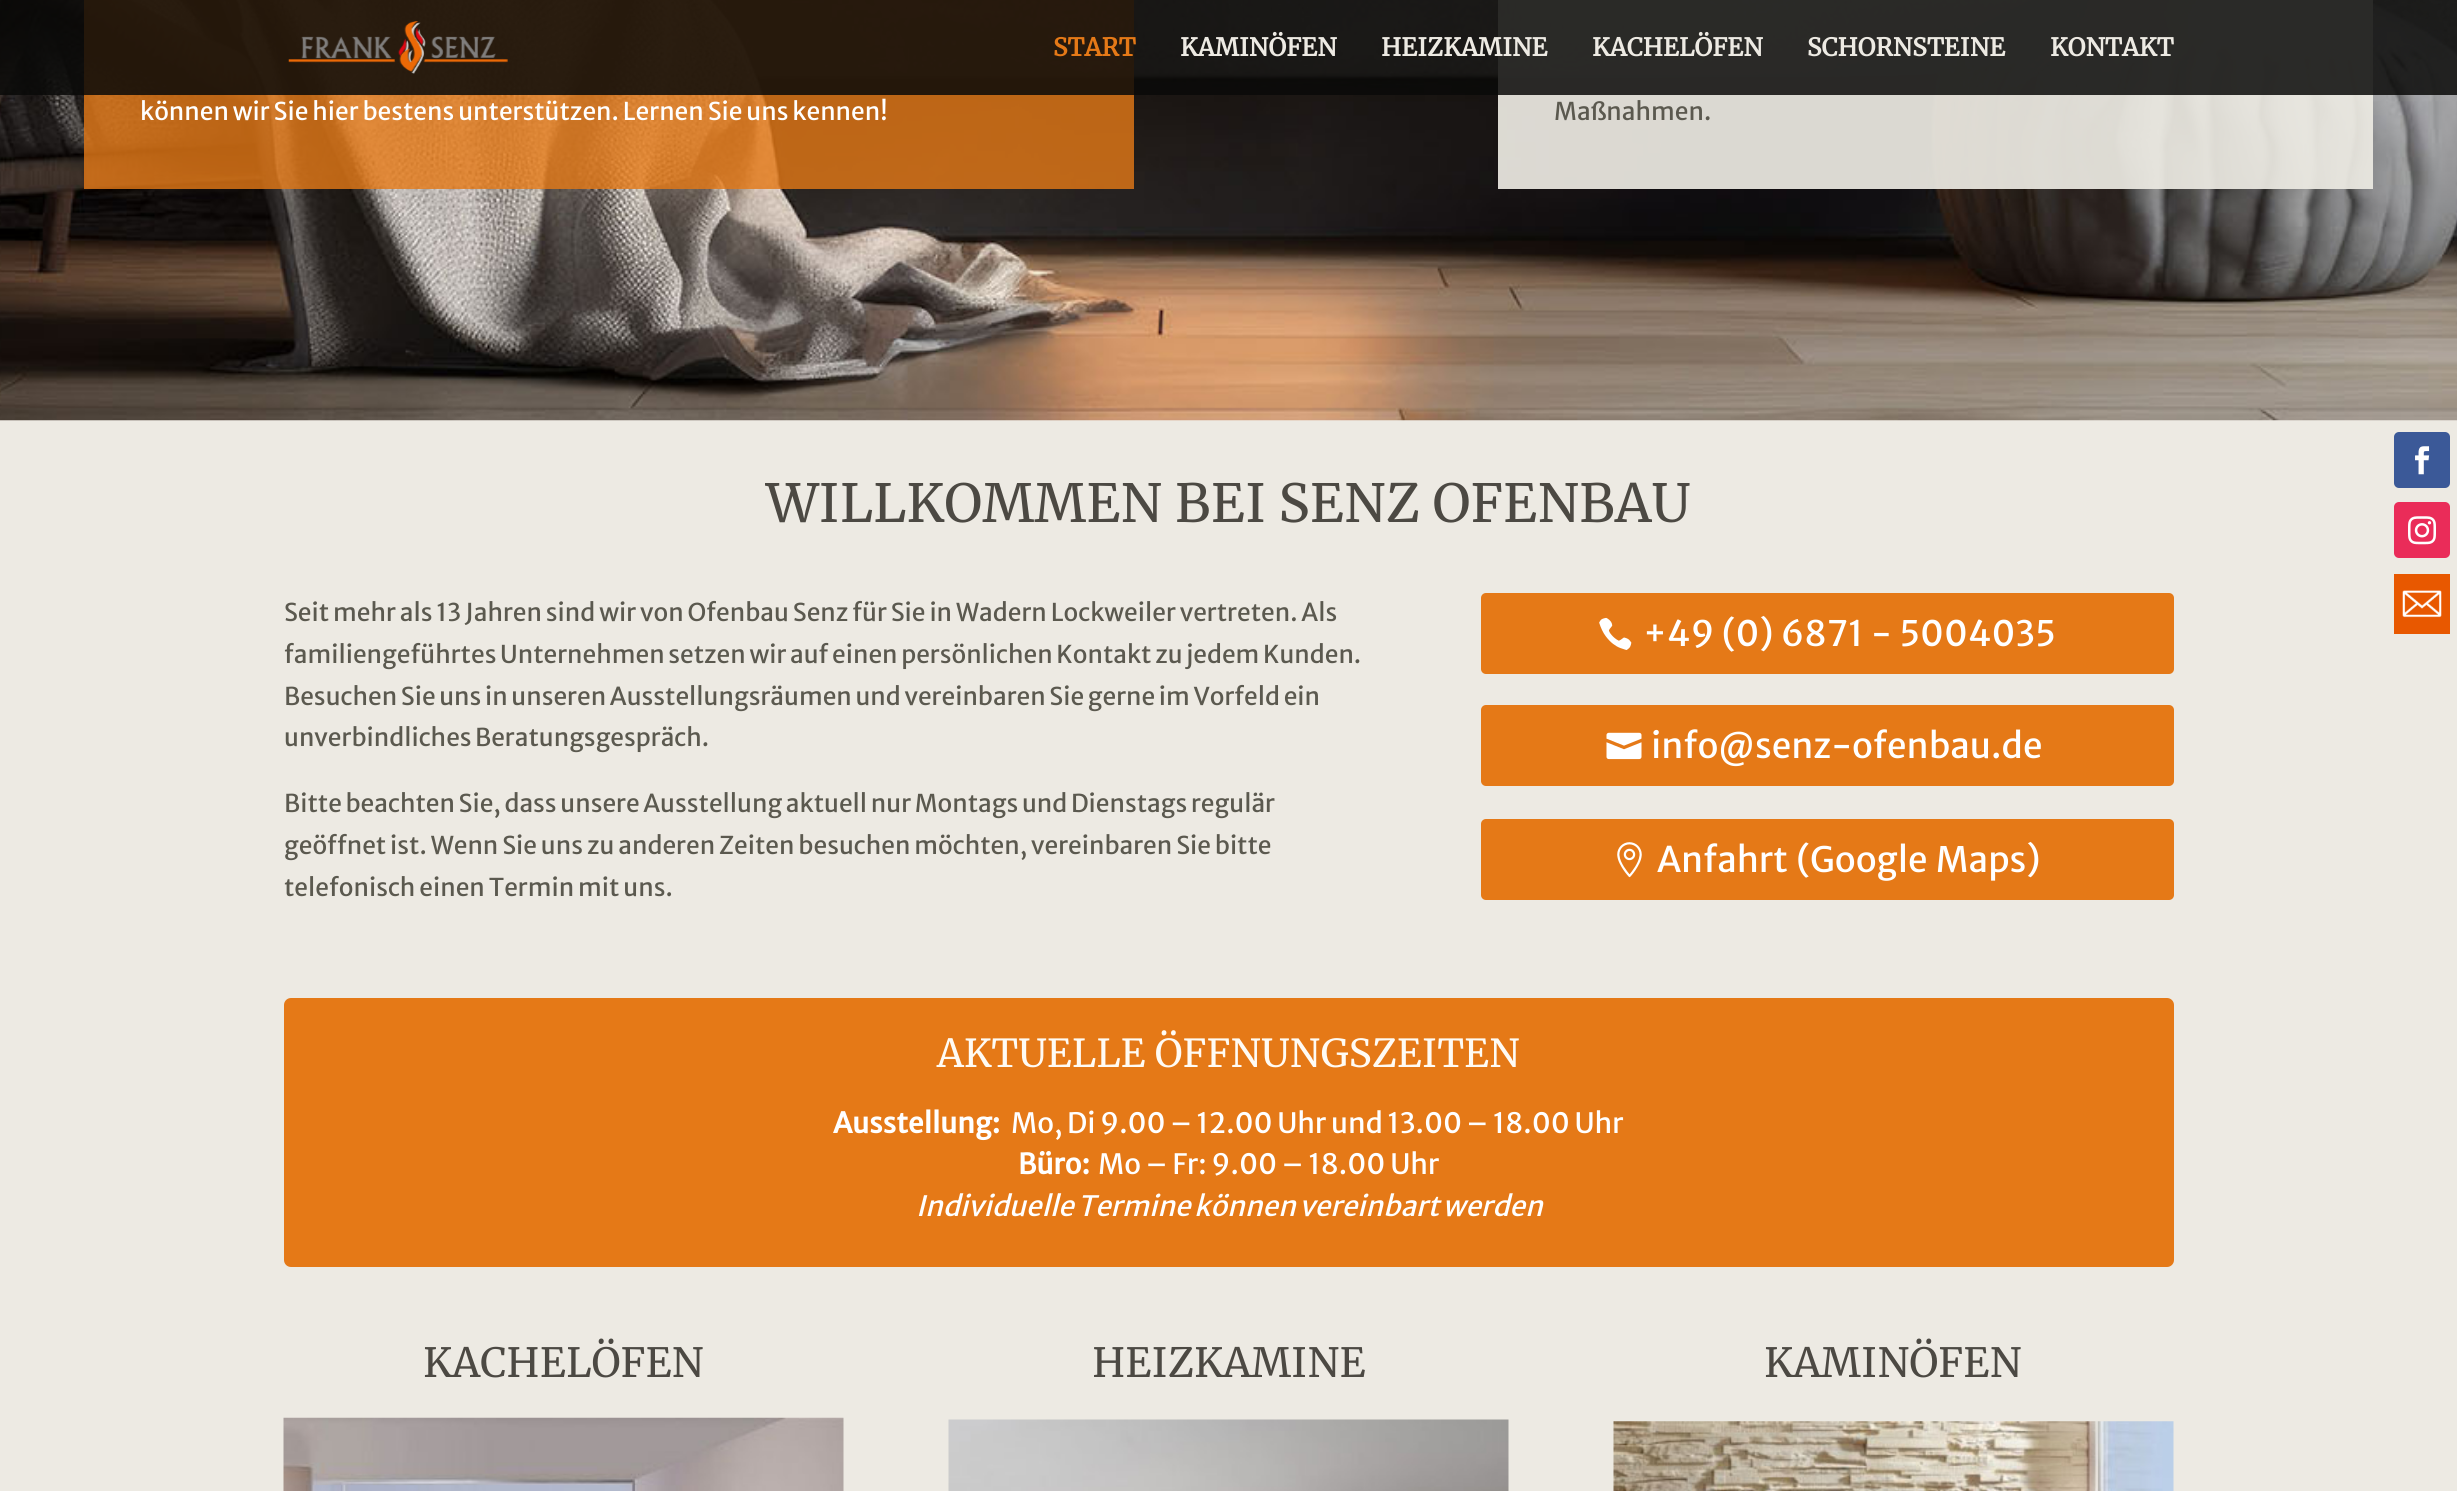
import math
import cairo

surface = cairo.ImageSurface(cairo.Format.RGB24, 2457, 1491)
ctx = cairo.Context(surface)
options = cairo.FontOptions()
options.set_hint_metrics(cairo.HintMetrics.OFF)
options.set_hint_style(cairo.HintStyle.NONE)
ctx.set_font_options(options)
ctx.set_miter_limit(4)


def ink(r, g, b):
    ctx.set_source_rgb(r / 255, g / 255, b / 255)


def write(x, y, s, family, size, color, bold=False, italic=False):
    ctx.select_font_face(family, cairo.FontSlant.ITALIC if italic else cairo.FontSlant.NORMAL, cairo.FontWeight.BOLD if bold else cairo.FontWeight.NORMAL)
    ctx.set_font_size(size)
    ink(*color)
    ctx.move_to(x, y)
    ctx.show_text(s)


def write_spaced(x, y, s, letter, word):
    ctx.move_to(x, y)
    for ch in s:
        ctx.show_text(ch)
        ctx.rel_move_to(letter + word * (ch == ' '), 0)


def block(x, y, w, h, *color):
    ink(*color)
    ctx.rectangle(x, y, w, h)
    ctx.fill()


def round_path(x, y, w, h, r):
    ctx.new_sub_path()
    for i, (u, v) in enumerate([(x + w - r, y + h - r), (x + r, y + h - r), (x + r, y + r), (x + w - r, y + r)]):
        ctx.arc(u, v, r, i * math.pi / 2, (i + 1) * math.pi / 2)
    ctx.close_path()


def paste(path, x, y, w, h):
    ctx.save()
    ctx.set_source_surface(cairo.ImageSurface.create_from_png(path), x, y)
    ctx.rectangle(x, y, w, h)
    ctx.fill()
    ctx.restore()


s1 = dict(family="Merriweather", size=24.5, color=(229, 121, 23), bold=True)
s2 = dict(family="Merriweather", size=24.5, color=(237, 234, 227), bold=True)
s3 = dict(family="Merriweather Sans", size=24.5, color=(91, 89, 79))
s4 = dict(family="Merriweather", size=52.5, color=(76, 73, 67))
s5 = dict(family="Merriweather Sans", size=35, color=(255, 255, 255))
s6 = dict(family="Merriweather", size=38.5, color=(255, 251, 244))
s7 = dict(family="Merriweather Sans", size=28, color=(255, 255, 255), bold=True)
s8 = dict(family="Merriweather", size=40.25, color=(76, 73, 67))

ink(237, 234, 227)
ctx.paint()
paste("pic2.png", 0, 0, 2457, 421)
ctx.set_source_rgba(0.898, 0.475, 0.09, 0.8)
ctx.rectangle(84, 0, 1050, 189)
ctx.fill()
ctx.set_source_rgba(0.929, 0.918, 0.89, 0.92)
ctx.rectangle(1498, 0, 875, 189)
ctx.fill()
ctx.set_source_rgba(0.039, 0.039, 0.035, 0.85)
ctx.rectangle(0, 0, 2457, 95)
ctx.fill()
paste("pic1.png", 288, 21, 220, 53)
write(1053, 56, "START", **s1)
write(1180, 56, "KAMINÖFEN", **s2)
write(1381, 56, "HEIZKAMINE", **s2)
write(1592, 56, "KACHELÖFEN", **s2)
write(1807, 56, "SCHORNSTEINE", **s2)
write(2050, 56, "KONTAKT", **s2)
ctx.select_font_face("Merriweather Sans")
ink(255, 255, 255)
write_spaced(140, 120, "können wir Sie hier bestens unterstützen. Lernen Sie uns kennen!", 0, -0.5)
write(1554, 120, "Maßnahmen.", **s3)
write(766, 522, "WILLKOMMEN BEI SENZ OFENBAU", **s4)
ctx.select_font_face("Merriweather Sans")
ctx.set_font_size(24.5)
ink(91, 89, 79)
write_spaced(284, 621, "Seit mehr als 13 Jahren sind wir von Ofenbau Senz für Sie in Wadern Lockweiler vertreten. Als", 0, -0.5)
write_spaced(284, 663, "familiengeführtes Unternehmen setzen wir auf einen persönlichen Kontakt zu jedem Kunden.", 0, -0.75)
write_spaced(284, 705, "Besuchen Sie uns in unseren Ausstellungsräumen und vereinbaren Sie gerne im Vorfeld ein", 0, -0.75)
write_spaced(284, 746, "unverbindliches Beratungsgespräch.", 0, -1)
write_spaced(284, 812, "Bitte beachten Sie, dass unsere Ausstellung aktuell nur Montags und Dienstags regulär", 0, -0.75)
write_spaced(284, 854, "geöffnet ist. Wenn Sie uns zu anderen Zeiten besuchen möchten, vereinbaren Sie bitte", 0, -0.5)
write_spaced(284, 896, "telefonisch einen Termin mit uns.", 0, -0.5)
ink(229, 121, 23)
round_path(1481, 593, 693, 81, 5)
ctx.fill()
paste("pic3.png", 1599, 617, 33, 33)
ctx.set_font_size(35)
ink(255, 255, 255)
write_spaced(1643, 646, "+49 (0) 6871 - 5004035", 0, 1)
ink(229, 121, 23)
round_path(1481, 705, 693, 81, 5)
ctx.fill()
paste("pic4.png", 1606, 732, 36, 28)
write(1651, 758, "info@senz-ofenbau.de", **s5)
ink(229, 121, 23)
round_path(1481, 819, 693, 81, 5)
ctx.fill()
paste("pic5.png", 1617, 842, 25, 36)
ink(255, 255, 255)
write_spaced(1657, 872, "Anfahrt (Google Maps)", 0, 2)
ink(229, 121, 23)
round_path(284, 998, 1890, 269, 7)
ctx.fill()
write(937, 1067, "AKTUELLE ÖFFNUNGSZEITEN", **s6)
write(833, 1133, "Ausstellung:", **s7)
ctx.select_font_face("Merriweather Sans")
write_spaced(1011, 1133, "Mo, Di 9.00 – 12.00 Uhr und 13.00 – 18.00 Uhr", 0, -0.5)
write(1018, 1174, "Büro:", **s7)
ctx.select_font_face("Merriweather Sans")
write_spaced(1098, 1174, "Mo – Fr: 9.00 – 18.00 Uhr", 0, -0.25)
ctx.select_font_face("Merriweather Sans", cairo.FontSlant.ITALIC)
write_spaced(916, 1216, "Individuelle Termine können vereinbart werden", 0, -1.5)
write(423, 1377, "KACHELÖFEN", **s8)
paste("pic6.png", 283, 1417, 561, 74)
write(1092, 1377, "HEIZKAMINE", **s8)
paste("pic7.png", 948, 1419, 561, 72)
write(1764, 1377, "KAMINÖFEN", **s8)
paste("pic8.png", 1613, 1421, 561, 70)
ink(59, 89, 152)
round_path(2394, 432, 56, 56, 5)
ctx.fill()
paste("pic9.png", 2415, 446, 15, 29)
ink(234, 44, 89)
round_path(2394, 502, 56, 56, 5)
ctx.fill()
paste("pic10.png", 2408, 516, 28, 29)
block(2394, 574, 56, 60, 232, 88, 0)
paste("pic11.png", 2402, 590, 40, 28)
surface.write_to_png("screenshot.png")
